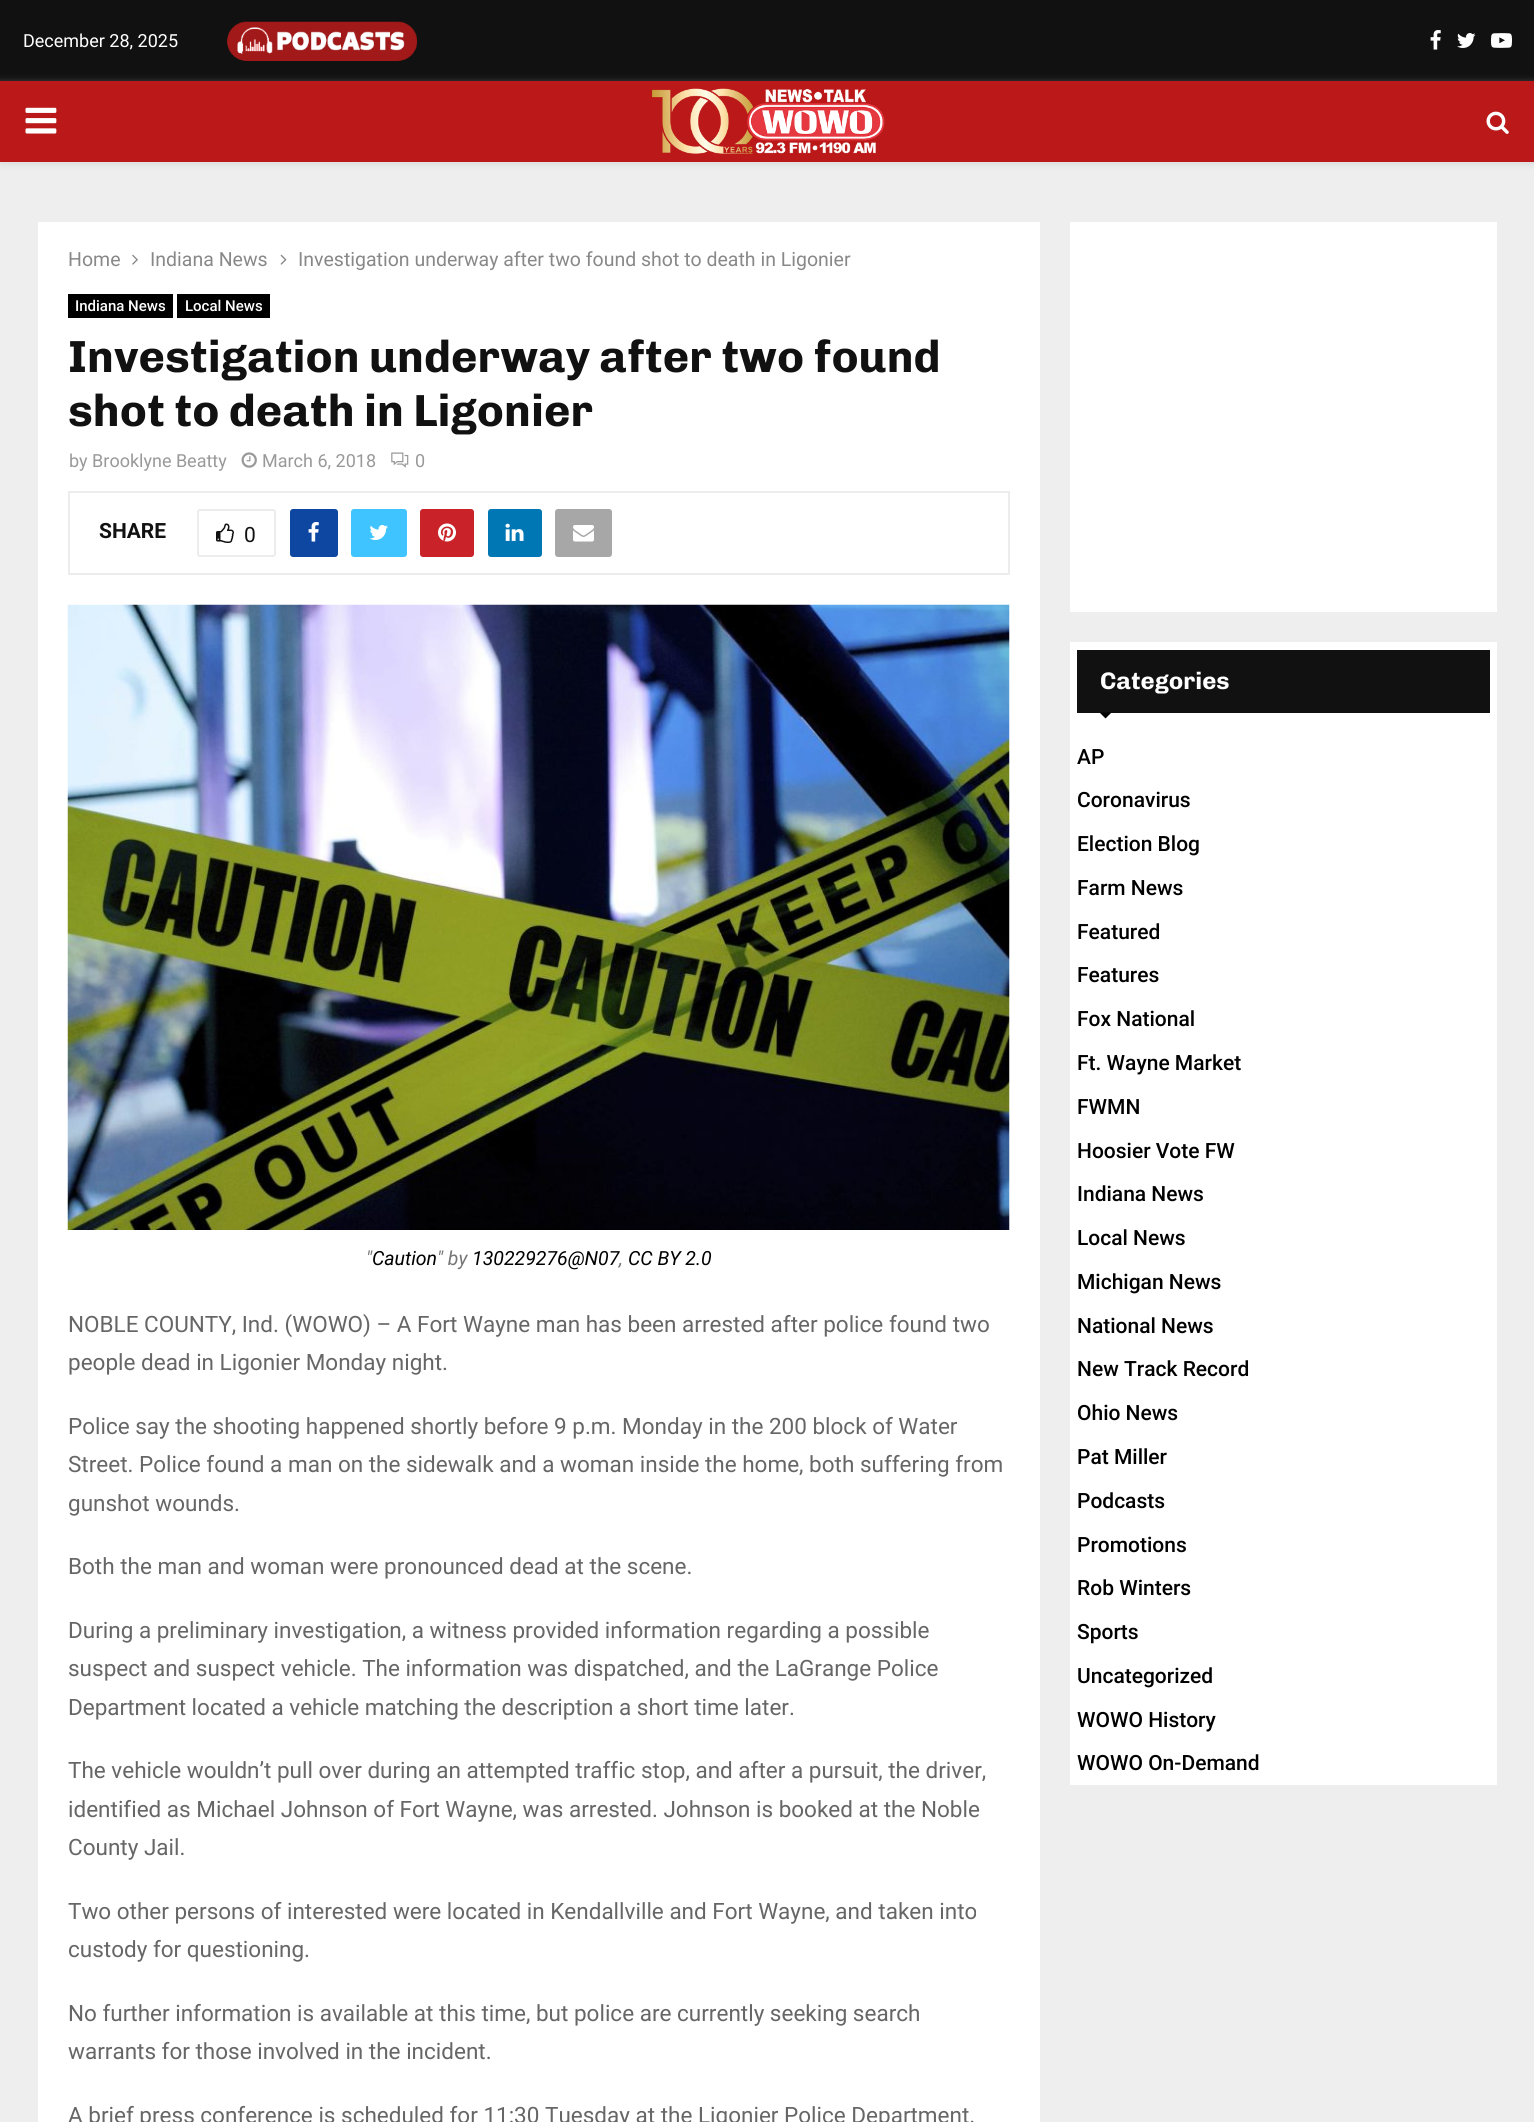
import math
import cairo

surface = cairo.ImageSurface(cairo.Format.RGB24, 1534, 2122)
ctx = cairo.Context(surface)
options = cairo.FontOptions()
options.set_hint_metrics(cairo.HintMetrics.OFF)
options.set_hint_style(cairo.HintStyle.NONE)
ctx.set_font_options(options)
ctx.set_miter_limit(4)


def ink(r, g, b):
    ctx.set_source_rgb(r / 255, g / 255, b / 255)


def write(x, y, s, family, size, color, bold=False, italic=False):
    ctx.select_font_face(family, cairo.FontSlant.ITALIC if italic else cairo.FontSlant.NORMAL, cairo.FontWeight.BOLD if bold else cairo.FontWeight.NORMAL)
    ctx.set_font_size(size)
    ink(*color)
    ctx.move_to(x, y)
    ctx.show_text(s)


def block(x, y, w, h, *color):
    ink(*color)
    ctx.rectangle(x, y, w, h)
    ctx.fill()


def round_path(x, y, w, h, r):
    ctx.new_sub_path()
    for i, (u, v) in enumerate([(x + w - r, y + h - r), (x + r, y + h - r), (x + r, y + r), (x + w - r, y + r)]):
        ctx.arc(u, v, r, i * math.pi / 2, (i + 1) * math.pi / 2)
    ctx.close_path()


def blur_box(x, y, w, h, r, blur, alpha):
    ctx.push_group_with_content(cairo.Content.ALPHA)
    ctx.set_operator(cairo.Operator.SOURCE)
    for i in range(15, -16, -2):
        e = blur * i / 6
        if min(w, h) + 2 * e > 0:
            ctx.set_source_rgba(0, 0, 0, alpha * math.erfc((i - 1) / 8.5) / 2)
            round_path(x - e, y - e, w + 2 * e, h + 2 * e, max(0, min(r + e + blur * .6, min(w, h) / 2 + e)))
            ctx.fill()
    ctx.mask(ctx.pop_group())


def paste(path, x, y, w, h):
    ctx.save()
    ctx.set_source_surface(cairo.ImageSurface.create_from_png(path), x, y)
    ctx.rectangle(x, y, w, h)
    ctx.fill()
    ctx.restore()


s1 = dict(family="Roboto", size=18, color=(255, 255, 255))
s2 = dict(family="Roboto", size=19.5, color=(136, 136, 136))
s3 = dict(family="Roboto Medium", size=15, color=(255, 255, 255))
s4 = dict(family="Chivo", size=45, color=(17, 17, 17), bold=True)
s5 = dict(family="Roboto", size=18, color=(153, 153, 153))
s6 = dict(family="Roboto", size=21, color=(17, 17, 17), bold=True)
s7 = dict(family="Roboto", size=21, color=(17, 17, 17))
s8 = dict(family="Roboto", size=19.5, color=(119, 119, 119), italic=True)
s9 = dict(family="Roboto", size=19.5, color=(0, 0, 0), italic=True)
s10 = dict(family="Roboto", size=22.5, color=(102, 102, 102))
s11 = dict(family="Chivo", size=24, color=(255, 255, 255), bold=True)
s12 = dict(family="Roboto Medium", size=21, color=(0, 0, 0))

ink(238, 238, 238)
ctx.paint()
block(0, 0, 1534, 81, 17, 17, 17)
write(23, 47, "December 28, 2025", **s1)
paste("pic1.png", 227, 21, 190, 40)
paste("pic2.png", 1430, 30, 11, 20)
paste("pic3.png", 1457, 33, 19, 15)
paste("pic4.png", 1491, 33, 21, 15)
ink(190, 190, 190)
blur_box(0, 83, 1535, 81, 0, 4, 0.46)
block(0, 81, 1534, 81, 187, 25, 25)
paste("pic5.png", 25, 107, 32, 27)
paste("pic6.png", 652, 88, 233, 66)
paste("pic7.png", 1486, 111, 23, 23)
block(38, 222, 1002, 1900, 255, 255, 255)
write(68, 266, "Home", **s2)
paste("pic8.png", 132, 254, 6, 11)
write(150, 266, "Indiana News", **s2)
paste("pic9.png", 280, 254, 7, 11)
write(298, 266, "Investigation underway after two found shot to death in Ligonier", **s2)
block(68, 294, 105, 24, 0, 0, 0)
write(75, 311, "Indiana News", **s3)
block(177, 294, 93, 24, 0, 0, 0)
write(185, 311, "Local News", **s3)
write(68, 372, "Investigation underway after two found", **s4)
write(68, 426, "shot to death in Ligonier", **s4)
write(69, 467, "by Brooklyne Beatty", **s5)
paste("pic10.png", 241, 452, 16, 16)
write(262, 467, "March 6, 2018", **s5)
paste("pic11.png", 391, 452, 18, 16)
write(415, 467, "0", **s5)
ctx.rectangle(69, 492, 940, 82)
ink(236, 236, 236)
ctx.stroke()
write(99, 538, "SHARE", **s6)
round_path(198, 510, 77, 46, 2)
ink(236, 236, 236)
ctx.stroke()
paste("pic12.png", 216, 523, 18, 20)
write(244, 542, "0", **s7)
ink(13, 71, 161)
round_path(290, 509, 48, 48, 3)
ctx.fill()
paste("pic13.png", 308, 522, 11, 20)
ink(64, 196, 255)
round_path(351, 509, 56, 48, 3)
ctx.fill()
paste("pic14.png", 369, 525, 19, 15)
ink(201, 34, 40)
round_path(420, 509, 54, 48, 3)
ctx.fill()
paste("pic15.png", 438, 523, 18, 19)
ink(0, 119, 181)
round_path(488, 509, 54, 48, 3)
ctx.fill()
paste("pic16.png", 505, 523, 19, 18)
ink(167, 167, 167)
round_path(555, 509, 57, 48, 3)
ctx.fill()
paste("pic17.png", 573, 525, 21, 17)
paste("pic18.png", 67, 604, 943, 626)
write(366, 1265, "\"", **s8)
write(372, 1265, "Caution", **s9)
write(437, 1265, "\" by", **s8)
write(472, 1265, "130229276@N07", **s9)
write(628, 1265, "CC BY 2.0", **s9)
write(619, 1265, ",", **s8)
write(68, 1332, "NOBLE COUNTY, Ind. (WOWO) – A Fort Wayne man has been arrested after police found two", **s10)
write(68, 1370, "people dead in Ligonier Monday night.", **s10)
write(68, 1434, "Police say the shooting happened shortly before 9 p.m. Monday in the 200 block of Water", **s10)
write(68, 1472, "Street. Police found a man on the sidewalk and a woman inside the home, both suffering from", **s10)
write(68, 1511, "gunshot wounds.", **s10)
write(68, 1574, "Both the man and woman were pronounced dead at the scene.", **s10)
write(68, 1638, "During a preliminary investigation, a witness provided information regarding a possible", **s10)
write(68, 1676, "suspect and suspect vehicle. The information was dispatched, and the LaGrange Police", **s10)
write(68, 1715, "Department located a vehicle matching the description a short time later.", **s10)
write(68, 1778, "The vehicle wouldn’t pull over during an attempted traffic stop, and after a pursuit, the driver,", **s10)
write(68, 1817, "identified as Michael Johnson of Fort Wayne, was arrested. Johnson is booked at the Noble", **s10)
write(68, 1855, "County Jail.", **s10)
write(68, 1919, "Two other persons of interested were located in Kendallville and Fort Wayne, and taken into", **s10)
write(68, 1957, "custody for questioning.", **s10)
write(68, 2021, "No further information is available at this time, but police are currently seeking search", **s10)
write(68, 2059, "warrants for those involved in the incident.", **s10)
write(68, 2123, "A brief press conference is scheduled for 11:30 Tuesday at the Ligonier Police Department.", **s10)
block(1070, 222, 427, 390, 255, 255, 255)
block(1070, 642, 427, 1143, 255, 255, 255)
block(1077, 650, 413, 63, 17, 17, 17)
write(1100, 689, "Categories", **s11)
ink(0, 0, 0)
ctx.new_path()
ctx.move_to(1099.5, 712.5)
ctx.line_to(1111.5, 712.5)
ctx.line_to(1105.5, 718.5)
ctx.close_path()
ctx.fill()
write(1077, 764, "AP", **s12)
write(1077, 807, "Coronavirus", **s12)
write(1077, 851, "Election Blog", **s12)
write(1077, 895, "Farm News", **s12)
write(1077, 939, "Featured", **s12)
write(1077, 982, "Features", **s12)
write(1077, 1026, "Fox National", **s12)
write(1077, 1070, "Ft. Wayne Market", **s12)
write(1077, 1114, "FWMN", **s12)
write(1077, 1158, "Hoosier Vote FW", **s12)
write(1077, 1201, "Indiana News", **s12)
write(1077, 1245, "Local News", **s12)
write(1077, 1289, "Michigan News", **s12)
write(1077, 1333, "National News", **s12)
write(1077, 1376, "New Track Record", **s12)
write(1077, 1420, "Ohio News", **s12)
write(1077, 1464, "Pat Miller", **s12)
write(1077, 1508, "Podcasts", **s12)
write(1077, 1552, "Promotions", **s12)
write(1077, 1595, "Rob Winters", **s12)
write(1077, 1639, "Sports", **s12)
write(1077, 1683, "Uncategorized", **s12)
write(1077, 1727, "WOWO History", **s12)
write(1077, 1770, "WOWO On-Demand", **s12)
surface.write_to_png("screenshot.png")
